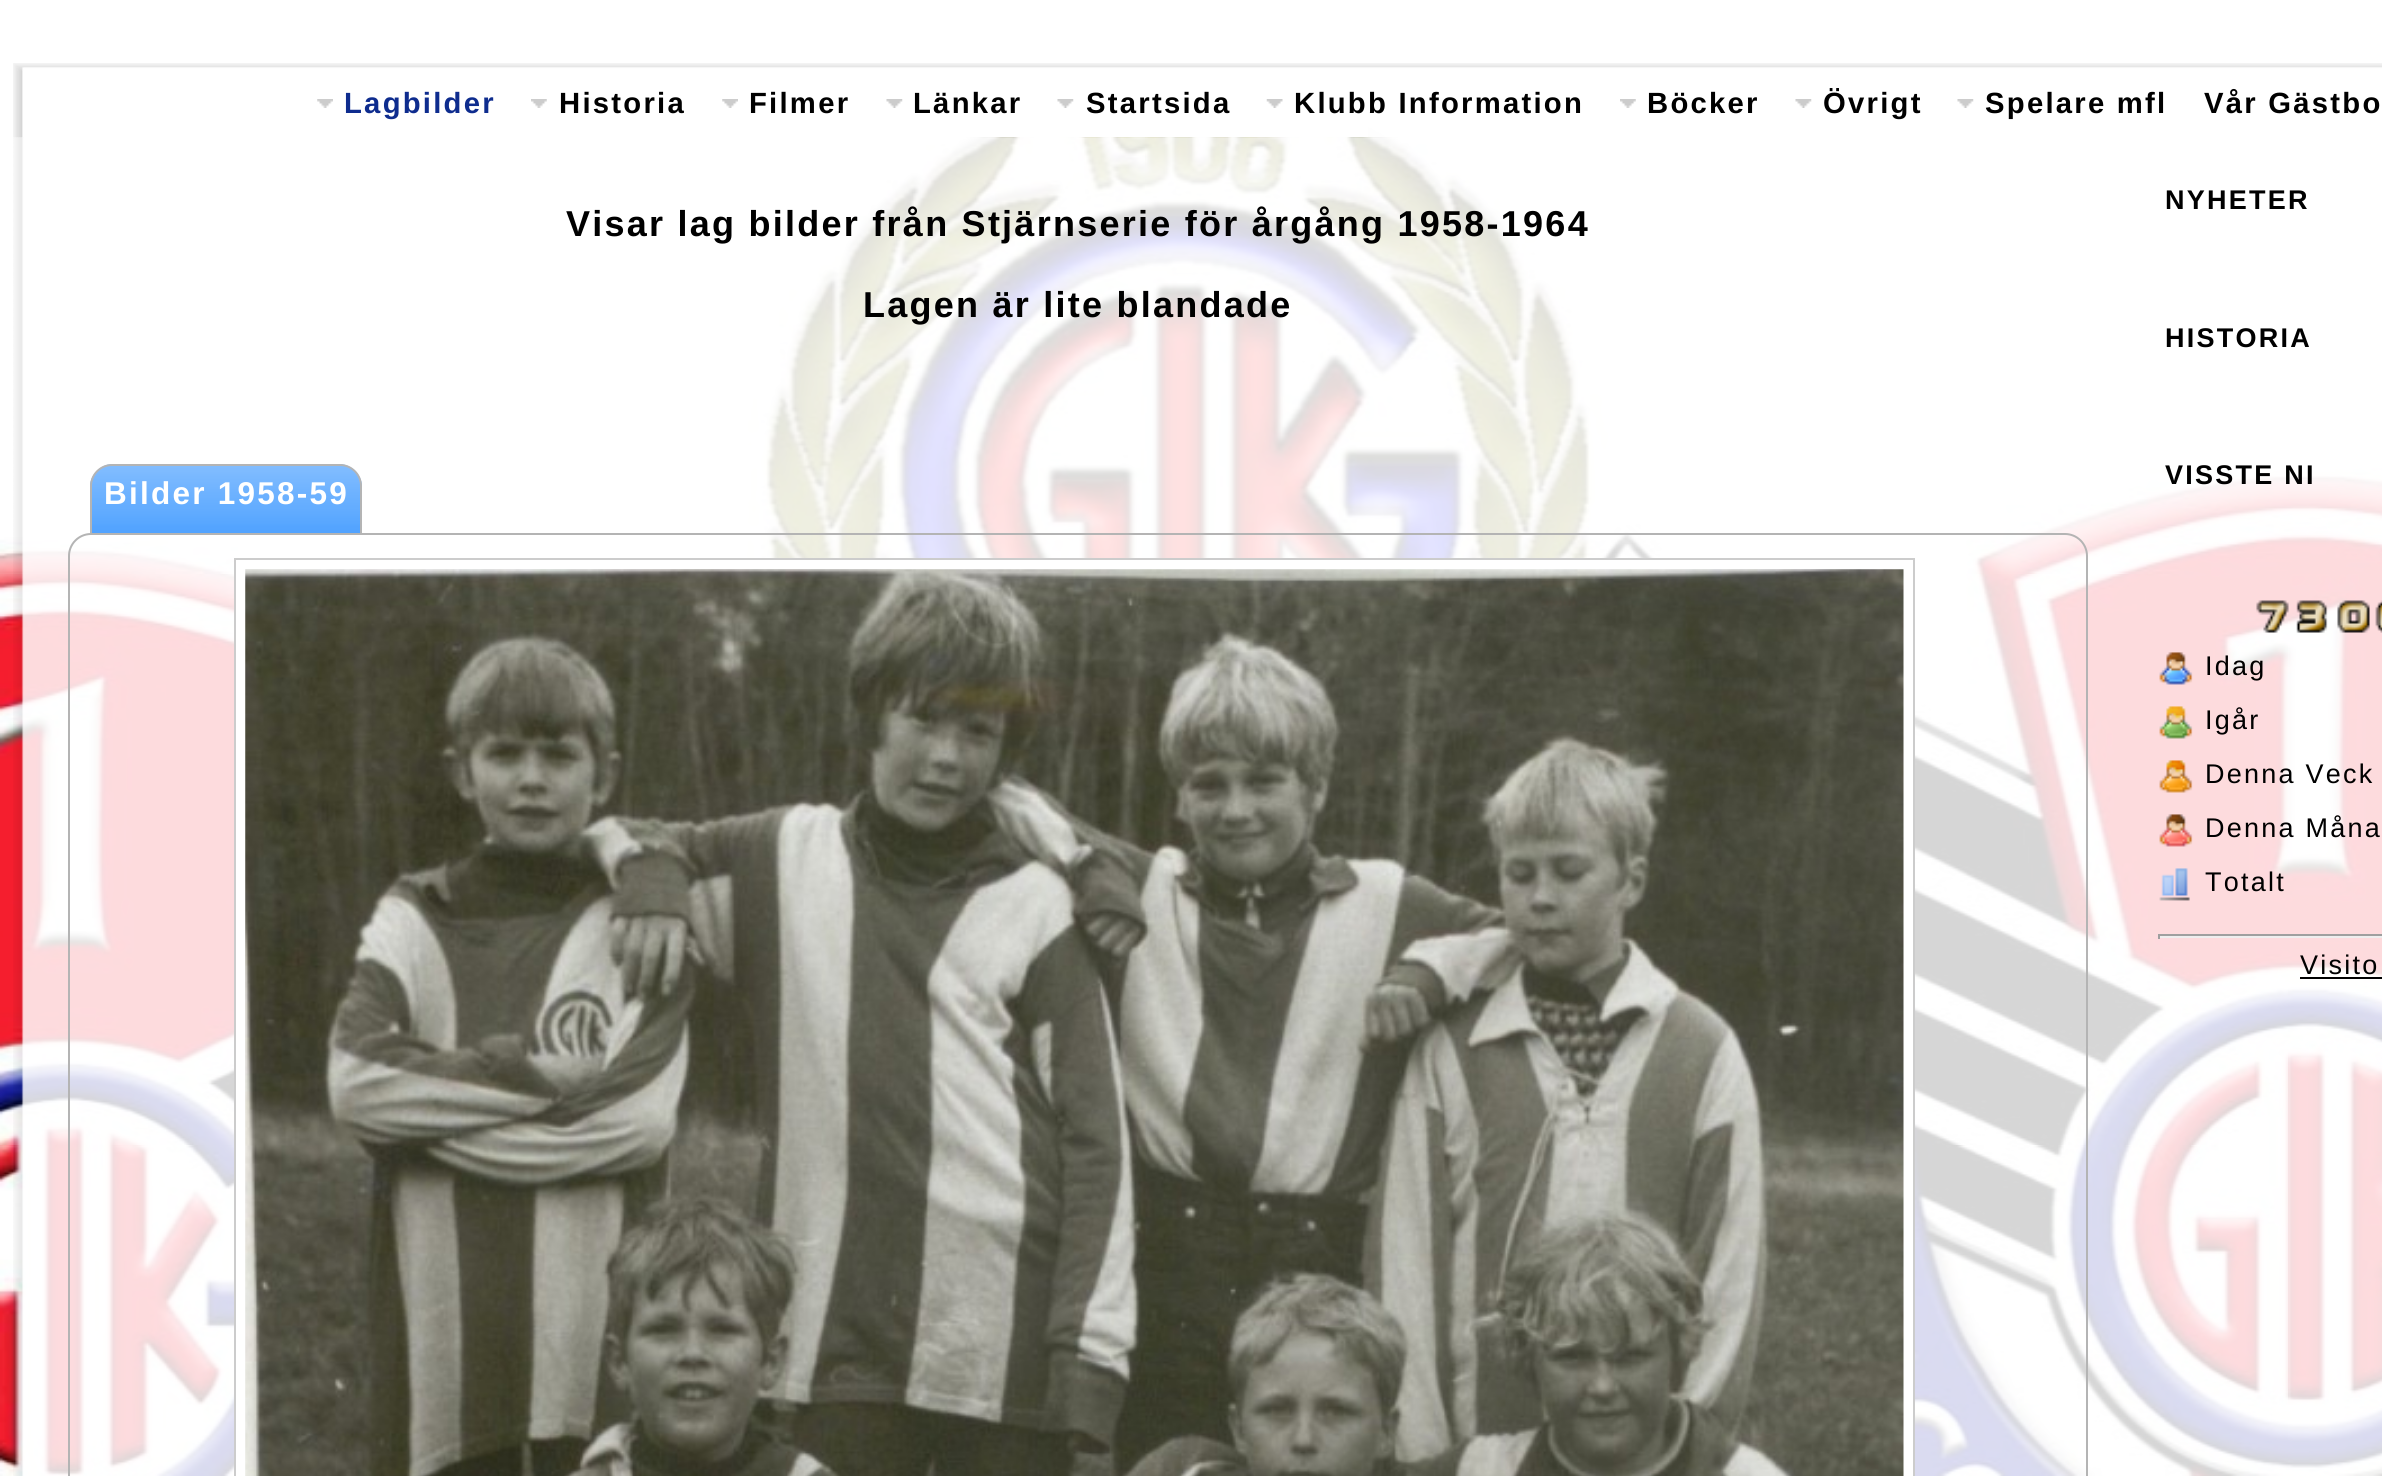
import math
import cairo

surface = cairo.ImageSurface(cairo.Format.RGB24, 2382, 1476)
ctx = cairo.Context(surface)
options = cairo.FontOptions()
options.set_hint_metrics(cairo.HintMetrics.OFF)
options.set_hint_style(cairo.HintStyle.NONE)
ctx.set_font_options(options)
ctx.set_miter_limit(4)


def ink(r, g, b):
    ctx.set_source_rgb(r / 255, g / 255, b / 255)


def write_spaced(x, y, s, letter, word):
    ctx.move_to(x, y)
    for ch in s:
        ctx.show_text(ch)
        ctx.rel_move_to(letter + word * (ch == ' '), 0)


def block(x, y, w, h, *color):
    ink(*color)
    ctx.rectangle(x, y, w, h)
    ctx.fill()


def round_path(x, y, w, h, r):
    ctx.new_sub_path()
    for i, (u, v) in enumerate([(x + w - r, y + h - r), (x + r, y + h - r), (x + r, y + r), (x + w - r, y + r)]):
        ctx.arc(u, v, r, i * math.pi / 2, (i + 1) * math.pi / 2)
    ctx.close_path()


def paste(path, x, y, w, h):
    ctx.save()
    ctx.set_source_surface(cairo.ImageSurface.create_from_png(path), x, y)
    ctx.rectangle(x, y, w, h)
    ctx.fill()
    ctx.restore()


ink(255, 255, 255)
ctx.paint()
paste("pic1.png", 0, 72, 2382, 1404)
paste("pic2.png", 13, 63, 2369, 75)
paste("pic3.png", 13, 63, 2369, 75)
block(23, 71, 1345, 66, 255, 255, 255)
paste("pic4.png", 317, 99, 16, 9)
ctx.select_font_face("Liberation Sans", cairo.FontSlant.NORMAL, cairo.FontWeight.BOLD)
ctx.set_font_size(29.25)
ink(14, 44, 142)
write_spaced(344, 113, "Lagbilder", 2.25, 0)
paste("pic5.png", 531, 99, 16, 9)
ink(0, 0, 0)
write_spaced(559, 113, "Historia", 2.25, 0)
paste("pic6.png", 722, 99, 16, 9)
write_spaced(749, 113, "Filmer", 2.25, 0)
paste("pic7.png", 886, 99, 17, 9)
write_spaced(913, 113, "Länkar", 2.25, 0)
paste("pic7.png", 1057, 99, 17, 9)
write_spaced(1086, 113, "Startsida", 2.25, 0)
paste("pic8.png", 1266, 99, 17, 9)
write_spaced(1294, 113, "Klubb Information", 2.25, 0)
paste("pic9.png", 1620, 99, 16, 9)
write_spaced(1647, 113, "Böcker", 2.25, 0)
paste("pic7.png", 1795, 99, 17, 9)
write_spaced(1823, 113, "Övrigt", 2.25, 0)
paste("pic10.png", 1957, 99, 17, 9)
write_spaced(1985, 113, "Spelare mfl", 2.25, 0)
write_spaced(2204, 113, "Vår Gästbo", 2.25, 0)
paste("pic11.png", 13, 137, 2369, 1339)
ctx.set_font_size(36)
write_spaced(566, 236, "Visar lag bilder från Stjärnserie för årgång 1958-1964", 2.25, 0)
write_spaced(863, 317, "Lagen är lite blandade", 2.25, 0)
ink(0, 120, 255)
ctx.new_path()
ctx.move_to(113, 464)
ctx.line_to(339, 464)
ctx.curve_to(351.5, 464, 362, 474.5, 362, 487)
ctx.line_to(362, 533)
ctx.line_to(90, 533)
ctx.line_to(90, 487)
ctx.curve_to(90, 474.5, 100.5, 464, 113, 464)
ctx.close_path()
ctx.fill()
paste("pic12.png", 90, 464, 272, 69)
ink(180, 180, 180)
ctx.set_fill_rule(cairo.FillRule.EVEN_ODD)
ctx.new_path()
ctx.move_to(112, 464)
ctx.line_to(340, 464)
ctx.curve_to(352, 464, 362, 474, 362, 486)
ctx.line_to(362, 533)
ctx.line_to(90, 533)
ctx.line_to(90, 486)
ctx.curve_to(90, 474, 100, 464, 112, 464)
ctx.close_path()
ctx.move_to(112, 466)
ctx.line_to(340, 466)
ctx.curve_to(351, 466, 360, 475, 360, 486)
ctx.line_to(360, 533)
ctx.line_to(92, 533)
ctx.line_to(92, 486)
ctx.curve_to(92, 475, 101, 466, 112, 466)
ctx.close_path()
ctx.fill()
ctx.set_font_size(31.5)
ink(255, 255, 255)
write_spaced(104, 504, "Bilder 1958-59", 2.25, 0)
round_path(69, 534, 2018, 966, 22)
ink(180, 180, 180)
ctx.stroke()
ink(255, 255, 255)
ctx.rectangle(235, 559, 1679, 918)
ctx.fill_preserve()
ink(204, 204, 204)
ctx.stroke()
paste("pic13.png", 245, 569, 1659, 907)
ctx.set_font_size(27)
ink(0, 0, 0)
write_spaced(2165, 209, "NYHETER", 2.25, 0)
write_spaced(2165, 347, "HISTORIA", 2.25, 0)
write_spaced(2165, 484, "VISSTE NI", 2.25, 0)
paste("pic14.png", 2256, 600, 33, 33)
paste("pic15.png", 2296, 600, 32, 33)
paste("pic16.png", 2337, 600, 33, 33)
paste("pic17.png", 2375, 600, 7, 33)
paste("pic18.png", 2159, 652, 34, 33)
paste("pic19.png", 2159, 706, 34, 33)
paste("pic20.png", 2159, 760, 34, 33)
paste("pic21.png", 2159, 814, 34, 33)
paste("pic22.png", 2159, 868, 31, 33)
ctx.select_font_face("Liberation Sans")
write_spaced(2205, 675, "Idag", 2.25, 0)
write_spaced(2205, 729, "Igår", 2.25, 0)
write_spaced(2205, 783, "Denna Veck", 2.25, 0)
write_spaced(2205, 837, "Denna Måna", 2.25, 0)
write_spaced(2205, 891, "Totalt", 2.25, 0)
block(2158, 934, 224, 2, 159, 159, 159)
block(2158, 936, 224, 2, 238, 238, 238)
block(2158, 934, 2, 5, 159, 159, 159)
ink(0, 0, 0)
write_spaced(2300, 974, "Visito", 2.25, 0)
block(2300, 977, 82, 2, 0, 0, 0)
surface.write_to_png("screenshot.png")
